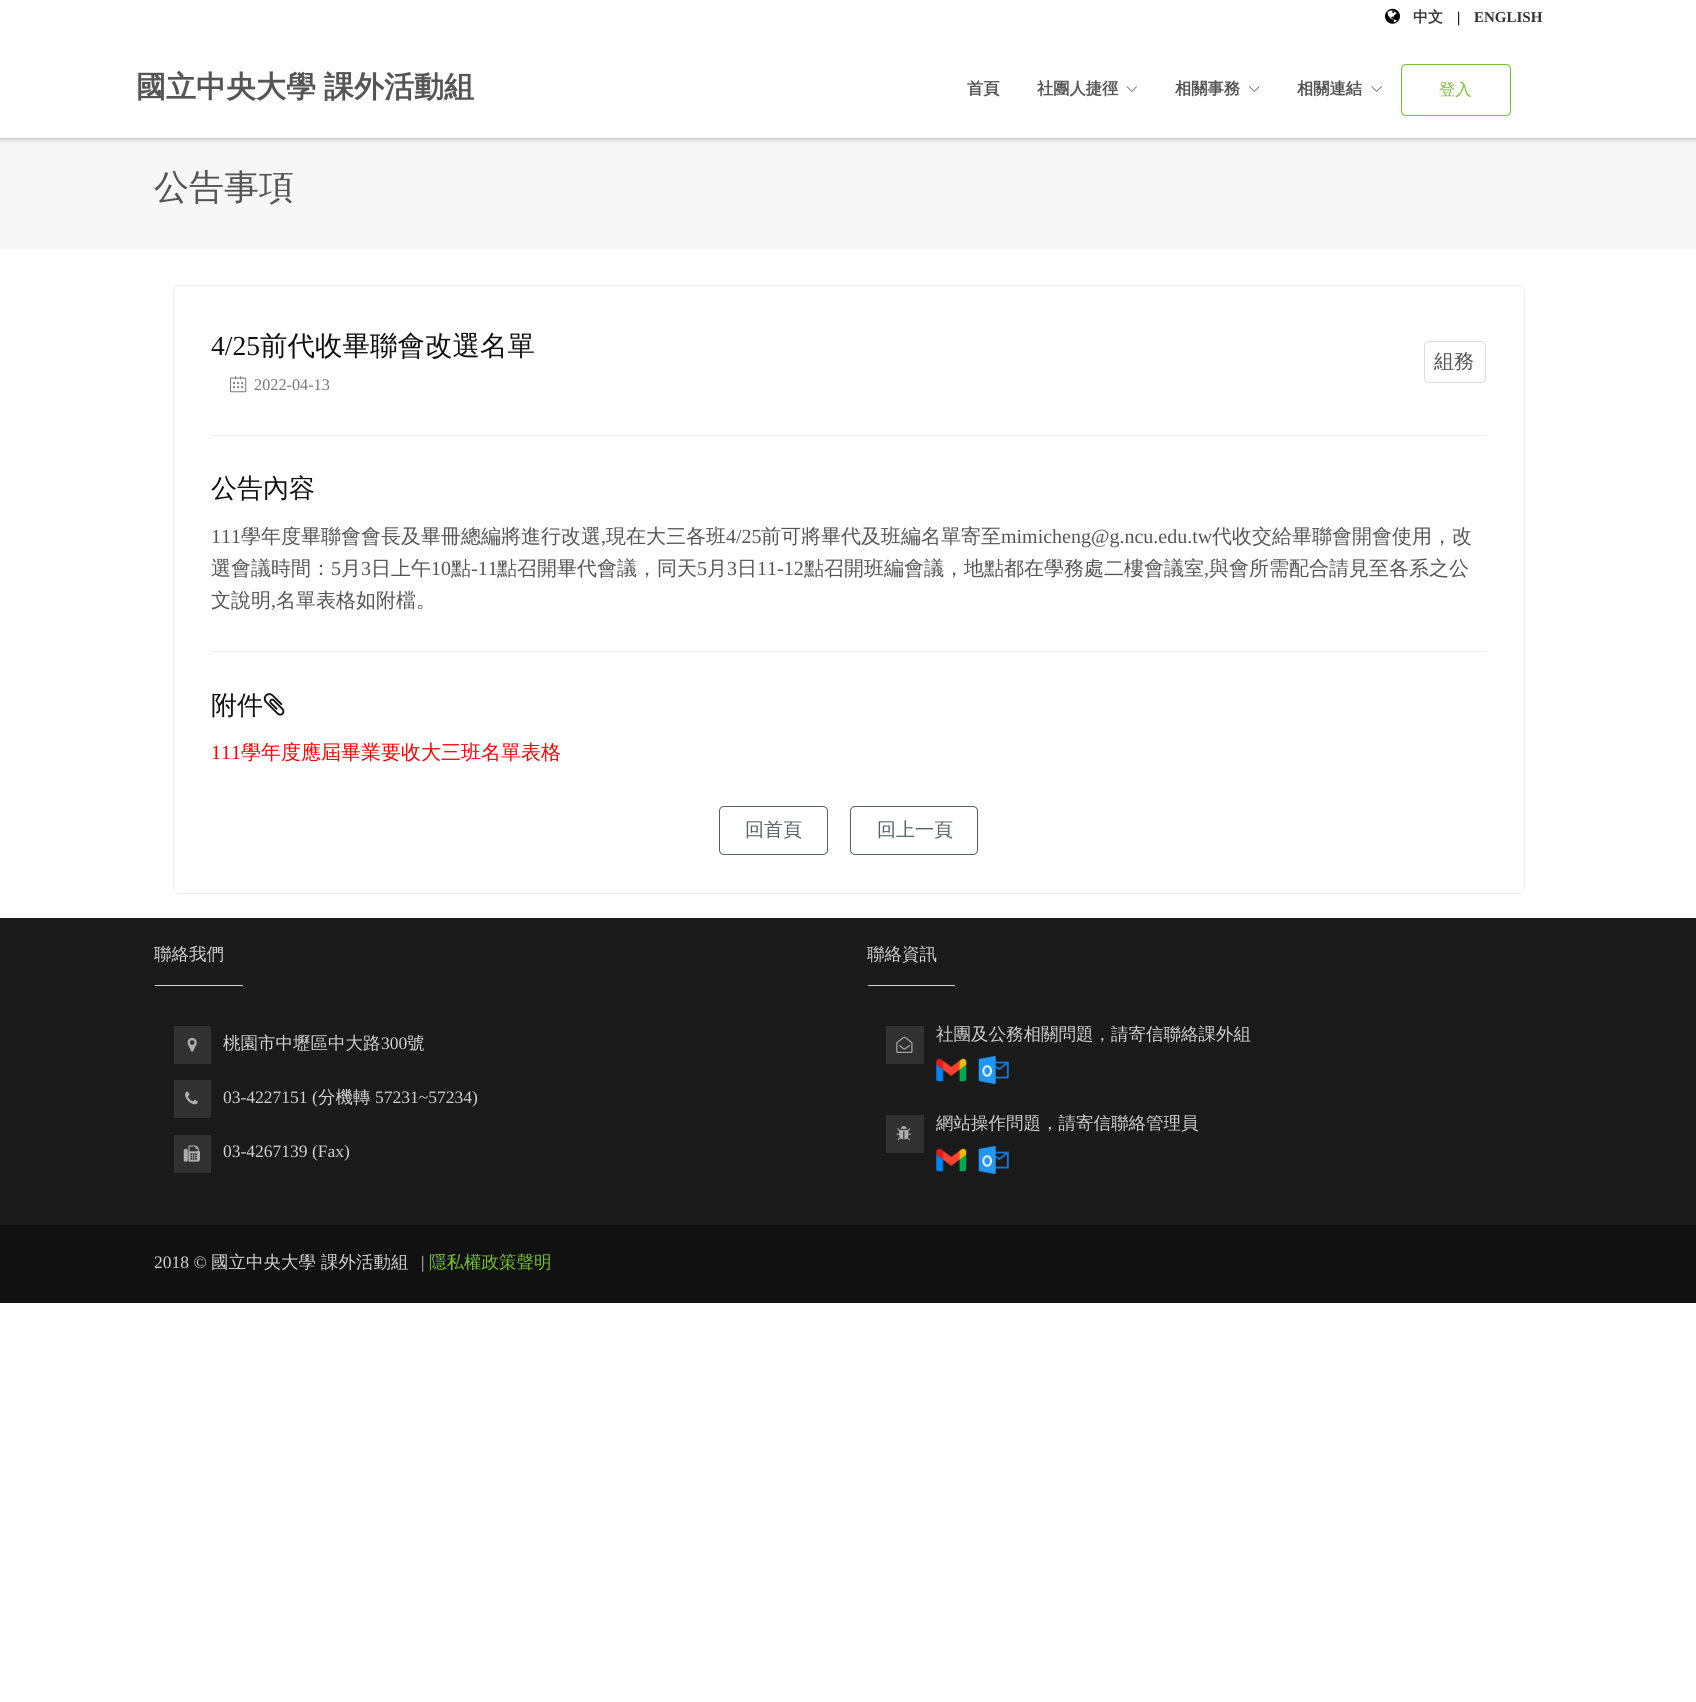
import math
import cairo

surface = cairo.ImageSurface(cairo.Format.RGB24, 1696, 1702)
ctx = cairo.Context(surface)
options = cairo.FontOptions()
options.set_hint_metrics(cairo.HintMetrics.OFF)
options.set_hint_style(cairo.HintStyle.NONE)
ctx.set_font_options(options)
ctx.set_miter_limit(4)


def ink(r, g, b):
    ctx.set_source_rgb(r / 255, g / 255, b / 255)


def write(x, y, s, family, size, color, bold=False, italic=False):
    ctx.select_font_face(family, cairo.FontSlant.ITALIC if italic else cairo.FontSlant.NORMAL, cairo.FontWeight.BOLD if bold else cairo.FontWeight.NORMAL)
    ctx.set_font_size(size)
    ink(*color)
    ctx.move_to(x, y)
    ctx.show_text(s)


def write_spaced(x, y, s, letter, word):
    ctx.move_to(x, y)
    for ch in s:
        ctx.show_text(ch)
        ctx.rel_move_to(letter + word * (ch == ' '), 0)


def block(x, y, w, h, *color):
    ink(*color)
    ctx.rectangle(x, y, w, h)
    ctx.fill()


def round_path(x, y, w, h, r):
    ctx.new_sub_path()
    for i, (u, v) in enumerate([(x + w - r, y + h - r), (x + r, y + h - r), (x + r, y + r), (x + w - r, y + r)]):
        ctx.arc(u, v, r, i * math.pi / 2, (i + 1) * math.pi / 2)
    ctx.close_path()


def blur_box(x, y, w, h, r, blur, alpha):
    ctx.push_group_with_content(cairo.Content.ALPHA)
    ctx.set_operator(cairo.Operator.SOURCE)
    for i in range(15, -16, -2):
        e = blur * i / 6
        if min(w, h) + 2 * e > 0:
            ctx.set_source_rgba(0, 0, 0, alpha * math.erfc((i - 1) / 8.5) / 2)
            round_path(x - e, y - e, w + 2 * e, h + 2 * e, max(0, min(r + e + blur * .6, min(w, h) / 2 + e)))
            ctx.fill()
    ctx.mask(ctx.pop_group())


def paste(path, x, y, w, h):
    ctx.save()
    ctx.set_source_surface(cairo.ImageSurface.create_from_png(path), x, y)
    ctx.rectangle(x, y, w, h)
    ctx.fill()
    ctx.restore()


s1 = dict(family="WenQuanYi Zen Hei", size=15, color=(51, 51, 51), bold=True)
s2 = dict(family="Liberation Serif", size=15, color=(0, 0, 0), bold=True)
s3 = dict(family="Liberation Serif", size=15, color=(51, 51, 51), bold=True)
s4 = dict(family="WenQuanYi Zen Hei", size=16.25, color=(85, 85, 85), bold=True)
s5 = dict(family="WenQuanYi Zen Hei Medium", size=16.25, color=(114, 192, 44))
s6 = dict(family="WenQuanYi Zen Hei Medium", size=35, color=(85, 85, 85))
s7 = dict(family="Liberation Serif", size=27.5, color=(17, 17, 17))
s8 = dict(family="WenQuanYi Zen Hei Medium", size=27.5, color=(17, 17, 17))
s9 = dict(family="Liberation Serif", size=16.25, color=(119, 119, 119))
s10 = dict(family="WenQuanYi Zen Hei Medium", size=20, color=(85, 85, 85))
s11 = dict(family="WenQuanYi Zen Hei Medium", size=26, color=(17, 17, 17))
s12 = dict(family="Liberation Serif", size=20, color=(85, 85, 85))
s13 = dict(family="Liberation Serif", size=20, color=(255, 0, 0))
s14 = dict(family="WenQuanYi Zen Hei Medium", size=20, color=(255, 0, 0))
s15 = dict(family="WenQuanYi Zen Hei Medium", size=19, color=(88, 95, 105))
s16 = dict(family="WenQuanYi Zen Hei Medium", size=17.5, color=(209, 209, 209))
s17 = dict(family="Liberation Serif", size=17.5, color=(209, 209, 209))
s18 = dict(family="WenQuanYi Zen Hei Medium", size=17.5, color=(114, 192, 44))

ink(255, 255, 255)
ctx.paint()
block(0, 138, 1696, 111, 247, 247, 247)
ctx.save()
ctx.rectangle(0, 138, 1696, 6)
ctx.clip()
ink(153, 153, 153)
blur_box(0, 0, 1696, 138, 0, 3, 1)
ctx.restore()
paste("pic1.png", 1385, 8, 15, 16)
write(1413, 22, "中文", **s1)
write(1457, 22, "|", **s2)
write(1474, 22, "ENGLISH", **s3)
block(0, 137, 1696, 1, 255, 255, 255)
ctx.select_font_face("WenQuanYi Zen Hei", cairo.FontSlant.NORMAL, cairo.FontWeight.BOLD)
ctx.set_font_size(30)
ink(85, 85, 85)
write_spaced(136, 97, "國立中央大學 課外活動組", 0, -1)
write(967, 94, "首頁", **s4)
write(1037, 94, "社團人捷徑", **s4)
paste("pic2.png", 1126, 86, 11, 6)
write(1175, 94, "相關事務", **s4)
paste("pic3.png", 1249, 86, 11, 6)
write(1297, 94, "相關連結", **s4)
paste("pic2.png", 1371, 86, 11, 6)
round_path(1401.5, 64.5, 109, 51, 4.5)
ink(114, 192, 44)
ctx.set_line_width(1)
ctx.stroke()
write(1439, 95, "登入", **s5)
write(154, 199, "公告事項", **s6)
ctx.save()
ctx.set_fill_rule(cairo.FillRule.EVEN_ODD)
ctx.new_path()
ctx.move_to(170, 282)
ctx.line_to(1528, 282)
ctx.line_to(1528, 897)
ctx.line_to(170, 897)
ctx.close_path()
ctx.move_to(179, 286)
ctx.line_to(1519, 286)
ctx.curve_to(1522, 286, 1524, 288, 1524, 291)
ctx.line_to(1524, 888)
ctx.curve_to(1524, 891, 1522, 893, 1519, 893)
ctx.line_to(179, 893)
ctx.curve_to(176, 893, 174, 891, 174, 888)
ctx.line_to(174, 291)
ctx.curve_to(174, 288, 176, 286, 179, 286)
ctx.close_path()
ctx.clip()
ink(204, 204, 204)
blur_box(174, 286, 1350, 607, 5, 1, 1)
ctx.restore()
write(211, 355, "4/25", **s7)
write(260, 355, "前代收畢聯會改選名單", **s8)
paste("pic4.png", 230, 376, 17, 17)
write(254, 390, "2022-04-13", **s9)
round_path(1424.5, 341.5, 61, 41, 4.5)
ink(221, 221, 221)
ctx.stroke()
write(1434, 368, "組務", **s10)
block(211, 435, 1275, 1, 238, 238, 238)
write(211, 497, "公告內容", **s11)
write(211, 543, "111", **s12)
write(241, 543, "學年度畢聯會會長及畢冊總編將進行改選", **s10)
write(601, 543, ",", **s12)
write(606, 543, "現在大三各班", **s10)
write(726, 543, "4/25", **s12)
write(761, 543, "前可將畢代及班編名單寄至", **s10)
write(1001, 543, "mimicheng@g.ncu.edu.tw", **s12)
write(1212, 543, "代收交給畢聯會開會使用，改", **s10)
write(211, 575, "選會議時間：", **s10)
write(331, 575, "5", **s12)
write(341, 575, "月", **s10)
write(361, 575, "3", **s12)
write(371, 575, "日上午", **s10)
write(431, 575, "10", **s12)
write(451, 575, "點", **s10)
write(471, 575, "-11", **s12)
write(497, 575, "點召開畢代會議，同天", **s10)
write(697, 575, "5", **s12)
write(707, 575, "月", **s10)
write(727, 575, "3", **s12)
write(737, 575, "日", **s10)
write(757, 575, "11-12", **s12)
write(804, 575, "點召開班編會議，地點都在學務處二樓會議室", **s10)
write(1204, 575, ",", **s12)
write(1209, 575, "與會所需配合請見至各系之公", **s10)
write(211, 607, "文說明", **s10)
write(271, 607, ",", **s12)
write(276, 607, "名單表格如附檔。", **s10)
block(211, 651, 1275, 1, 238, 238, 238)
write(211, 714, "附件", **s11)
paste("pic5.png", 263, 693, 22, 23)
write(211, 759, "111", **s13)
write(241, 759, "學年度應屆畢業要收大三班名單表格", **s14)
round_path(719.5, 806.5, 108, 48, 4.5)
ink(88, 95, 105)
ctx.stroke()
write(745, 836, "回首頁", **s15)
round_path(850.5, 806.5, 127, 48, 4.5)
ctx.stroke()
write(877, 836, "回上一頁", **s15)
block(0, 918, 1696, 307, 26, 26, 26)
write(154, 960, "聯絡我們", **s16)
block(155, 985, 88, 1, 209, 209, 209)
block(174, 1026, 37, 38, 49, 49, 49)
paste("pic6.png", 187, 1037, 10, 15)
write(223, 1049, "桃園市中壢區中大路", **s16)
write(381, 1049, "300", **s17)
write(407, 1049, "號", **s16)
block(174, 1080, 37, 38, 49, 49, 49)
paste("pic7.png", 185, 1091, 13, 14)
write(223, 1103, "03-4227151 (", **s17)
write(318, 1103, "分機轉", **s16)
write(375, 1103, "57231~57234)", **s17)
block(174, 1135, 37, 38, 49, 49, 49)
paste("pic8.png", 183, 1145, 17, 17)
write(223, 1157, "03-4267139 (Fax)", **s17)
write(867, 960, "聯絡資訊", **s16)
block(868, 985, 87, 1, 209, 209, 209)
block(886, 1026, 38, 38, 49, 49, 49)
paste("pic9.png", 896, 1036, 17, 17)
write(936, 1040, "社團及公務相關問題，請寄信聯絡課外組", **s16)
paste("pic10.png", 936, 1058, 31, 24)
paste("pic11.png", 978, 1056, 31, 29)
block(886, 1115, 38, 38, 49, 49, 49)
paste("pic12.png", 896, 1126, 15, 15)
write(936, 1129, "網站操作問題，請寄信聯絡管理員", **s16)
paste("pic10.png", 936, 1148, 31, 24)
paste("pic11.png", 978, 1146, 31, 29)
block(0, 1225, 1696, 78, 17, 17, 17)
write(154, 1268, "2018 ©", **s17)
write(211, 1268, "國立中央大學", **s16)
write(321, 1268, "課外活動組", **s16)
write(421, 1268, "|", **s17)
write(429, 1268, "隱私權政策聲明", **s18)
surface.write_to_png("screenshot.png")
